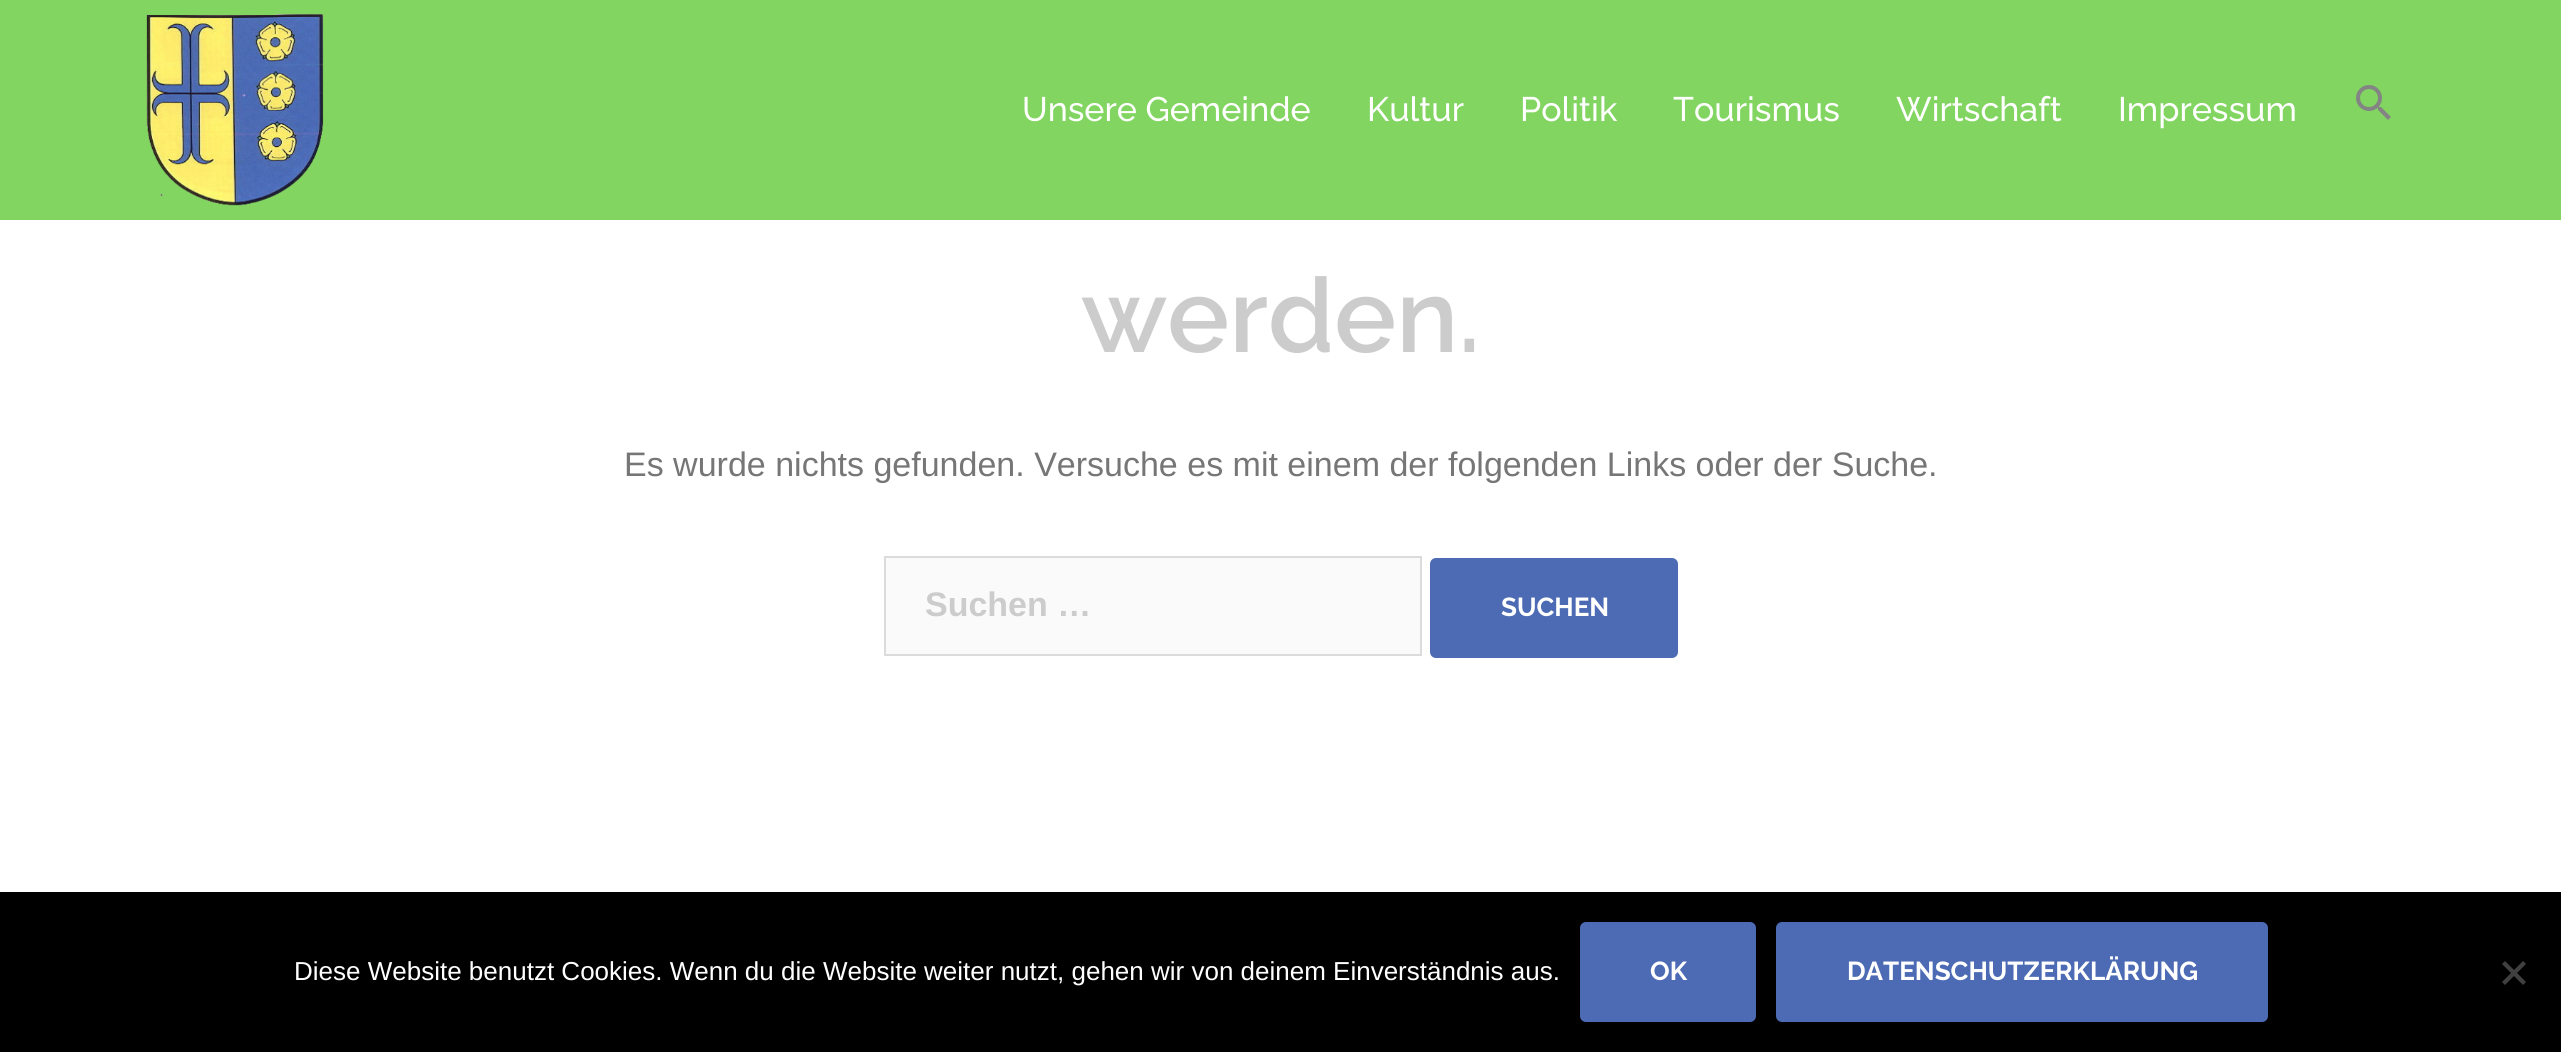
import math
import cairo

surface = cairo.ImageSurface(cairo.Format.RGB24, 2561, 1052)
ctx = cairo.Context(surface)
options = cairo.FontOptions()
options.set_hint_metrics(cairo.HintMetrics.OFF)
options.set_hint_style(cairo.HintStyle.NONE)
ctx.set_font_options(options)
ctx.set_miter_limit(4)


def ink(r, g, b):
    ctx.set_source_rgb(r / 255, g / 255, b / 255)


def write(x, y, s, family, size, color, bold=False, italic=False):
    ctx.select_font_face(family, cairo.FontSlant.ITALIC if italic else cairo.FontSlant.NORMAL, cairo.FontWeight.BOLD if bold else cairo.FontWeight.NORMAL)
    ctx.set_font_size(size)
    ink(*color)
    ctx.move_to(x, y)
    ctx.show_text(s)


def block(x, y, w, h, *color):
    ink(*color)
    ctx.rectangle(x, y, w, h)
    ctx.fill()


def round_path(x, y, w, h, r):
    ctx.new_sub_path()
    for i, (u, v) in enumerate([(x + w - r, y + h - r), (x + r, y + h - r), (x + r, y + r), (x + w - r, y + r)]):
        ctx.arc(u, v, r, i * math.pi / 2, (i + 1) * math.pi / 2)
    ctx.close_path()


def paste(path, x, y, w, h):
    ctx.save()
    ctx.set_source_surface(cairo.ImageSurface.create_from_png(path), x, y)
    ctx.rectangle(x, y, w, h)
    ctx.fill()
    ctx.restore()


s1 = dict(family="Raleway Medium", size=34, color=(255, 255, 255))
s2 = dict(family="Raleway SemiBold", size=104, color=(204, 204, 204))
s3 = dict(family="Liberation Sans", size=34, color=(118, 118, 118))
s4 = dict(family="Liberation Sans", size=34, color=(204, 204, 204), bold=True)
s5 = dict(family="Raleway", size=26, color=(255, 255, 255), bold=True)
s6 = dict(family="Liberation Sans", size=26, color=(255, 255, 255))

ink(255, 255, 255)
ctx.paint()
ctx.set_source_rgba(0.455, 0.82, 0.31, 0.9)
ctx.rectangle(0, 0, 2561, 220)
ctx.fill()
paste("pic1.png", 146, 14, 178, 192)
write(1022, 121, "Unsere Gemeinde", **s1)
write(1367, 121, "Kultur", **s1)
write(1520, 121, "Politik", **s1)
write(1673, 121, "Tourismus", **s1)
write(1896, 121, "Wirtschaft", **s1)
write(2118, 121, "Impressum", **s1)
paste("pic2.png", 2356, 85, 35, 35)
write(1081, 352, "werden.", **s2)
write(624, 476, "Es wurde nichts gefunden. Versuche es mit einem der folgenden Links oder der Suche.", **s3)
ink(250, 250, 250)
ctx.rectangle(885, 557, 536, 98)
ctx.fill_preserve()
ink(219, 219, 219)
ctx.stroke()
write(925, 616, "Suchen …", **s4)
ink(77, 107, 180)
round_path(1431, 559, 246, 98, 5)
ctx.fill_preserve()
ctx.stroke()
write(1501, 616, "SUCHEN", **s5)
block(0, 892, 2561, 160, 0, 0, 0)
write(294, 980, "Diese Website benutzt Cookies. Wenn du die Website weiter nutzt, gehen wir von deinem Einverständnis aus.", **s6)
ink(77, 107, 180)
round_path(1581, 923, 174, 98, 5)
ctx.fill_preserve()
ctx.stroke()
write(1650, 980, "OK", **s5)
ink(77, 107, 180)
round_path(1777, 923, 490, 98, 5)
ctx.fill_preserve()
ctx.stroke()
write(1847, 980, "DATENSCHUTZERKLÄRUNG", **s5)
ink(64, 64, 64)
ctx.new_path()
ctx.move_to(2523, 961)
ctx.line_to(2526, 964)
ctx.line_to(2505, 985)
ctx.line_to(2502, 982)
ctx.close_path()
ctx.fill()
ctx.new_path()
ctx.move_to(2502, 964)
ctx.line_to(2505, 961)
ctx.line_to(2526, 982)
ctx.line_to(2523, 985)
ctx.close_path()
ctx.fill()
surface.write_to_png("screenshot.png")
